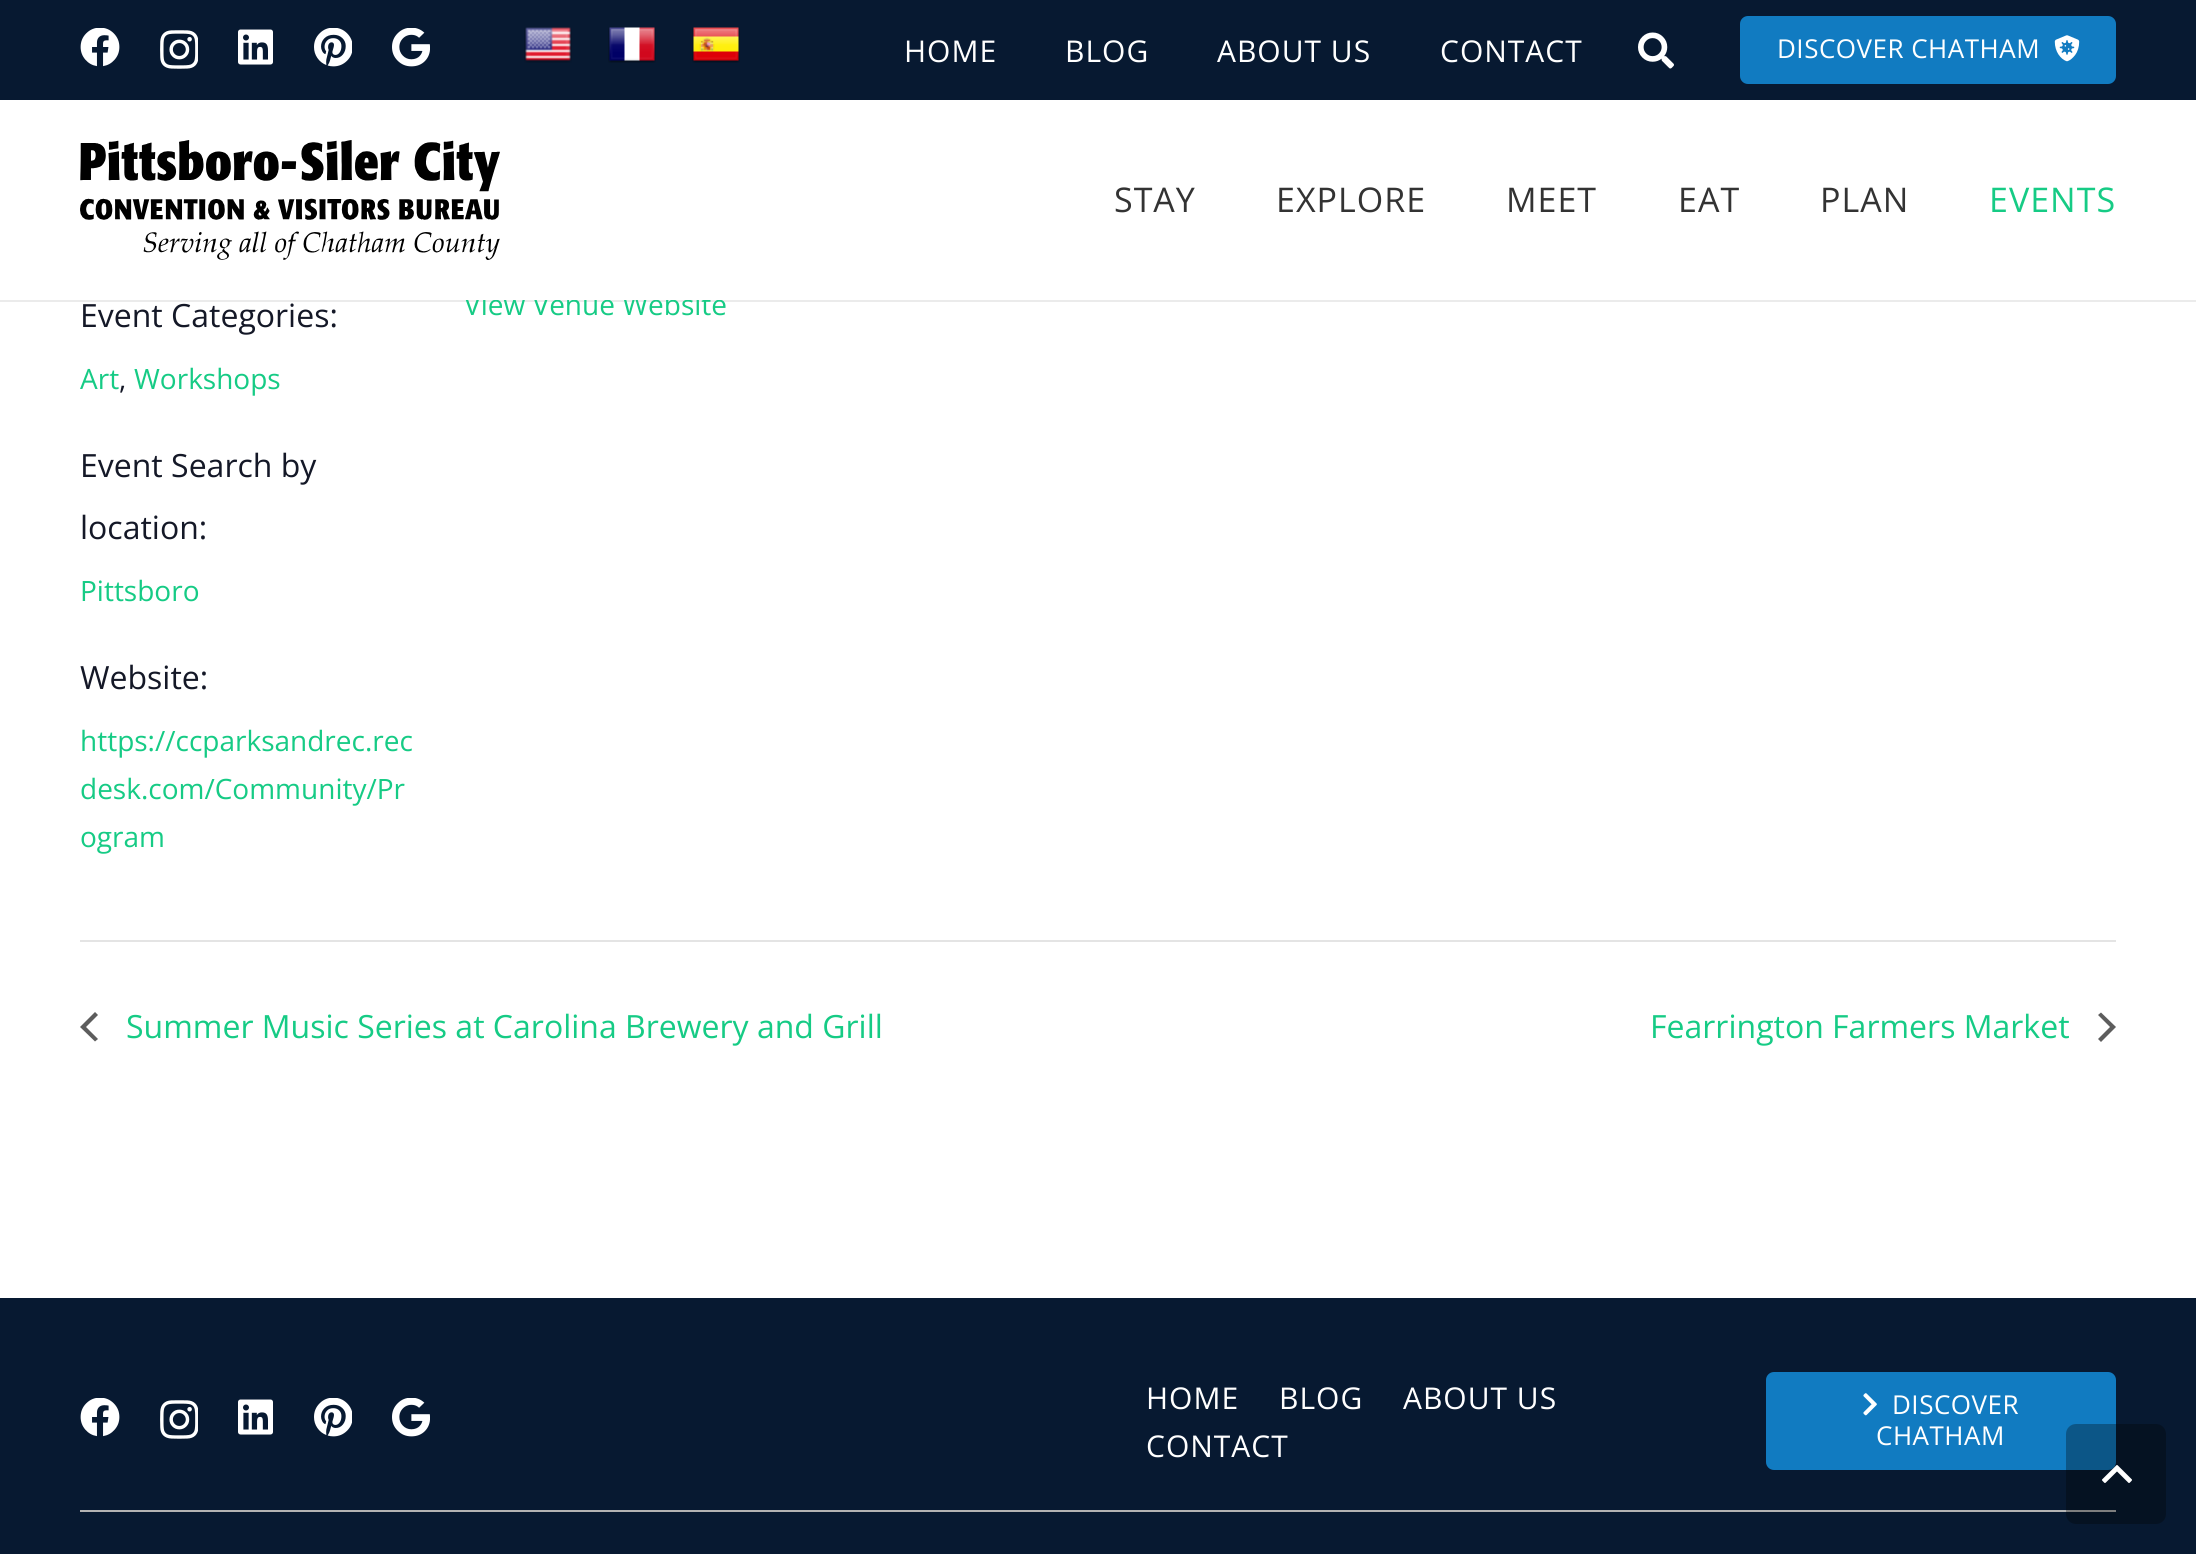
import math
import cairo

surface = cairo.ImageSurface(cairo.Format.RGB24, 2196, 1554)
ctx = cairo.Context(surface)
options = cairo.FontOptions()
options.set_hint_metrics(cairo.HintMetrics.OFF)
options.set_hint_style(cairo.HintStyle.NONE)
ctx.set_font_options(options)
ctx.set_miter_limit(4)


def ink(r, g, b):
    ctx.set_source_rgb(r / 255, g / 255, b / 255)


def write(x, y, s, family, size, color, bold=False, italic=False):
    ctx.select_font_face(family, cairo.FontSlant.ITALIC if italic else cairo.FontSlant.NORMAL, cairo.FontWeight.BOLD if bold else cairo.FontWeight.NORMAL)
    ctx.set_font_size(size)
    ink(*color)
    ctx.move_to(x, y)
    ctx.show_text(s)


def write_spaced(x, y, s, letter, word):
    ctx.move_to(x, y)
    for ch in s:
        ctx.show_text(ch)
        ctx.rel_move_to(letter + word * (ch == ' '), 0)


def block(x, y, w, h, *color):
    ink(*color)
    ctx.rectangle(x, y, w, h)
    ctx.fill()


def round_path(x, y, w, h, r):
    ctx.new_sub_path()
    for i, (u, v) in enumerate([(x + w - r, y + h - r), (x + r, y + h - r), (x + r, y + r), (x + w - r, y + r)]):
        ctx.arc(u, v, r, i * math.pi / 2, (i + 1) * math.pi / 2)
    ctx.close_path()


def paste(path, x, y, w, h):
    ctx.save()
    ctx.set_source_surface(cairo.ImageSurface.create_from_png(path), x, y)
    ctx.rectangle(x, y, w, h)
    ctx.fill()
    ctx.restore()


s1 = dict(family="Open Sans", size=28, color=(22, 203, 133))
s2 = dict(family="Open Sans", size=32, color=(20, 24, 39))
s3 = dict(family="Open Sans", size=28, color=(20, 24, 39))
s4 = dict(family="Open Sans", size=32, color=(22, 203, 133))

ink(255, 255, 255)
ctx.paint()
block(0, 0, 2196, 100, 7, 25, 49)
paste("pic1.png", 80, 28, 40, 39)
paste("pic2.png", 160, 30, 38, 39)
paste("pic3.png", 238, 29, 35, 36)
paste("pic4.png", 314, 28, 38, 39)
paste("pic5.png", 392, 28, 38, 39)
paste("pic6.png", 524, 27, 48, 36)
paste("pic7.png", 608, 27, 48, 36)
paste("pic8.png", 692, 27, 48, 36)
ctx.select_font_face("Open Sans")
ctx.set_font_size(30)
ink(255, 255, 255)
write_spaced(904, 62, "HOME", 1, 0)
write_spaced(1065, 62, "BLOG", 1, 0)
write_spaced(1217, 62, "ABOUT US", 1, 0)
write_spaced(1440, 62, "CONTACT", 1, 0)
paste("pic9.png", 1638, 32, 36, 37)
ink(17, 123, 193)
round_path(1740, 16, 376, 68, 8)
ctx.fill()
ctx.set_font_size(26)
ink(255, 255, 255)
write_spaced(1777, 58, "DISCOVER CHATHAM", 0.5, 0)
paste("pic10.png", 2054, 35, 26, 27)
ctx.set_source_rgba(0, 0, 0, 0.08)
ctx.rectangle(0, 300, 2196, 2)
ctx.fill()
write(464, 315, "View Venue Website", **s1)
block(464, 293, 258, 7, 255, 255, 255)
paste("pic11.png", 80, 140, 420, 120)
ctx.set_font_size(34)
ink(51, 51, 51)
write_spaced(1114, 212, "STAY", 1, 0)
write_spaced(1276, 212, "EXPLORE", 1, 0)
write_spaced(1506, 212, "MEET", 1, 0)
write_spaced(1678, 212, "EAT", 1, 0)
write_spaced(1820, 212, "PLAN", 1, 0)
ink(22, 203, 133)
write_spaced(1989, 212, "EVENTS", 1, 0)
write(80, 327, "Event Categories:", **s2)
write(80, 389, "Art", **s1)
write(119, 389, ",", **s3)
write(134, 389, "Workshops", **s1)
write(80, 477, "Event Search by", **s2)
write(80, 539, "location:", **s2)
write(80, 601, "Pittsboro", **s1)
write(80, 689, "Website:", **s2)
write(80, 751, "https://ccparksandrec.rec", **s1)
write(80, 799, "desk.com/Community/Pr", **s1)
write(80, 847, "ogram", **s1)
block(80, 940, 2036, 2, 228, 228, 228)
ink(93, 93, 93)
ctx.new_path()
ctx.move_to(98, 1039)
ctx.line_to(95, 1041.5)
ctx.line_to(80, 1027)
ctx.line_to(95, 1012)
ctx.line_to(98, 1015)
ctx.line_to(86, 1027)
ctx.close_path()
ctx.fill()
write(126, 1038, "Summer Music Series at Carolina Brewery and Grill", **s4)
write(1650, 1038, "Fearrington Farmers Market", **s4)
ink(93, 93, 93)
ctx.new_path()
ctx.move_to(2098, 1015)
ctx.line_to(2101, 1012.5)
ctx.line_to(2116, 1027)
ctx.line_to(2101, 1042)
ctx.line_to(2098, 1039)
ctx.line_to(2110, 1027)
ctx.close_path()
ctx.fill()
block(0, 1298, 2196, 256, 7, 25, 49)
paste("pic1.png", 80, 1398, 40, 39)
paste("pic2.png", 160, 1400, 38, 39)
paste("pic3.png", 238, 1399, 35, 36)
paste("pic4.png", 314, 1398, 38, 39)
paste("pic5.png", 392, 1398, 38, 39)
ctx.set_font_size(30)
ink(255, 255, 255)
write_spaced(1146, 1409, "HOME", 1, 0)
write_spaced(1279, 1409, "BLOG", 1, 0)
write_spaced(1403, 1409, "ABOUT US", 1, 0)
write_spaced(1146, 1457, "CONTACT", 1, 0)
ink(17, 123, 193)
round_path(1766, 1372, 350, 98, 8)
ctx.fill()
paste("pic12.png", 1863, 1393, 14, 23)
ctx.set_font_size(26)
ink(255, 255, 255)
write_spaced(1892, 1414, "DISCOVER", 0.5, 0)
write_spaced(1876, 1445, "CHATHAM", 0.5, 0)
block(80, 1510, 2036, 2, 179, 179, 179)
ctx.set_source_rgba(0, 0, 0, 0.3)
round_path(2066, 1424, 100, 100, 10)
ctx.fill()
paste("pic13.png", 2102, 1465, 30, 18)
surface.write_to_png("screenshot.png")
